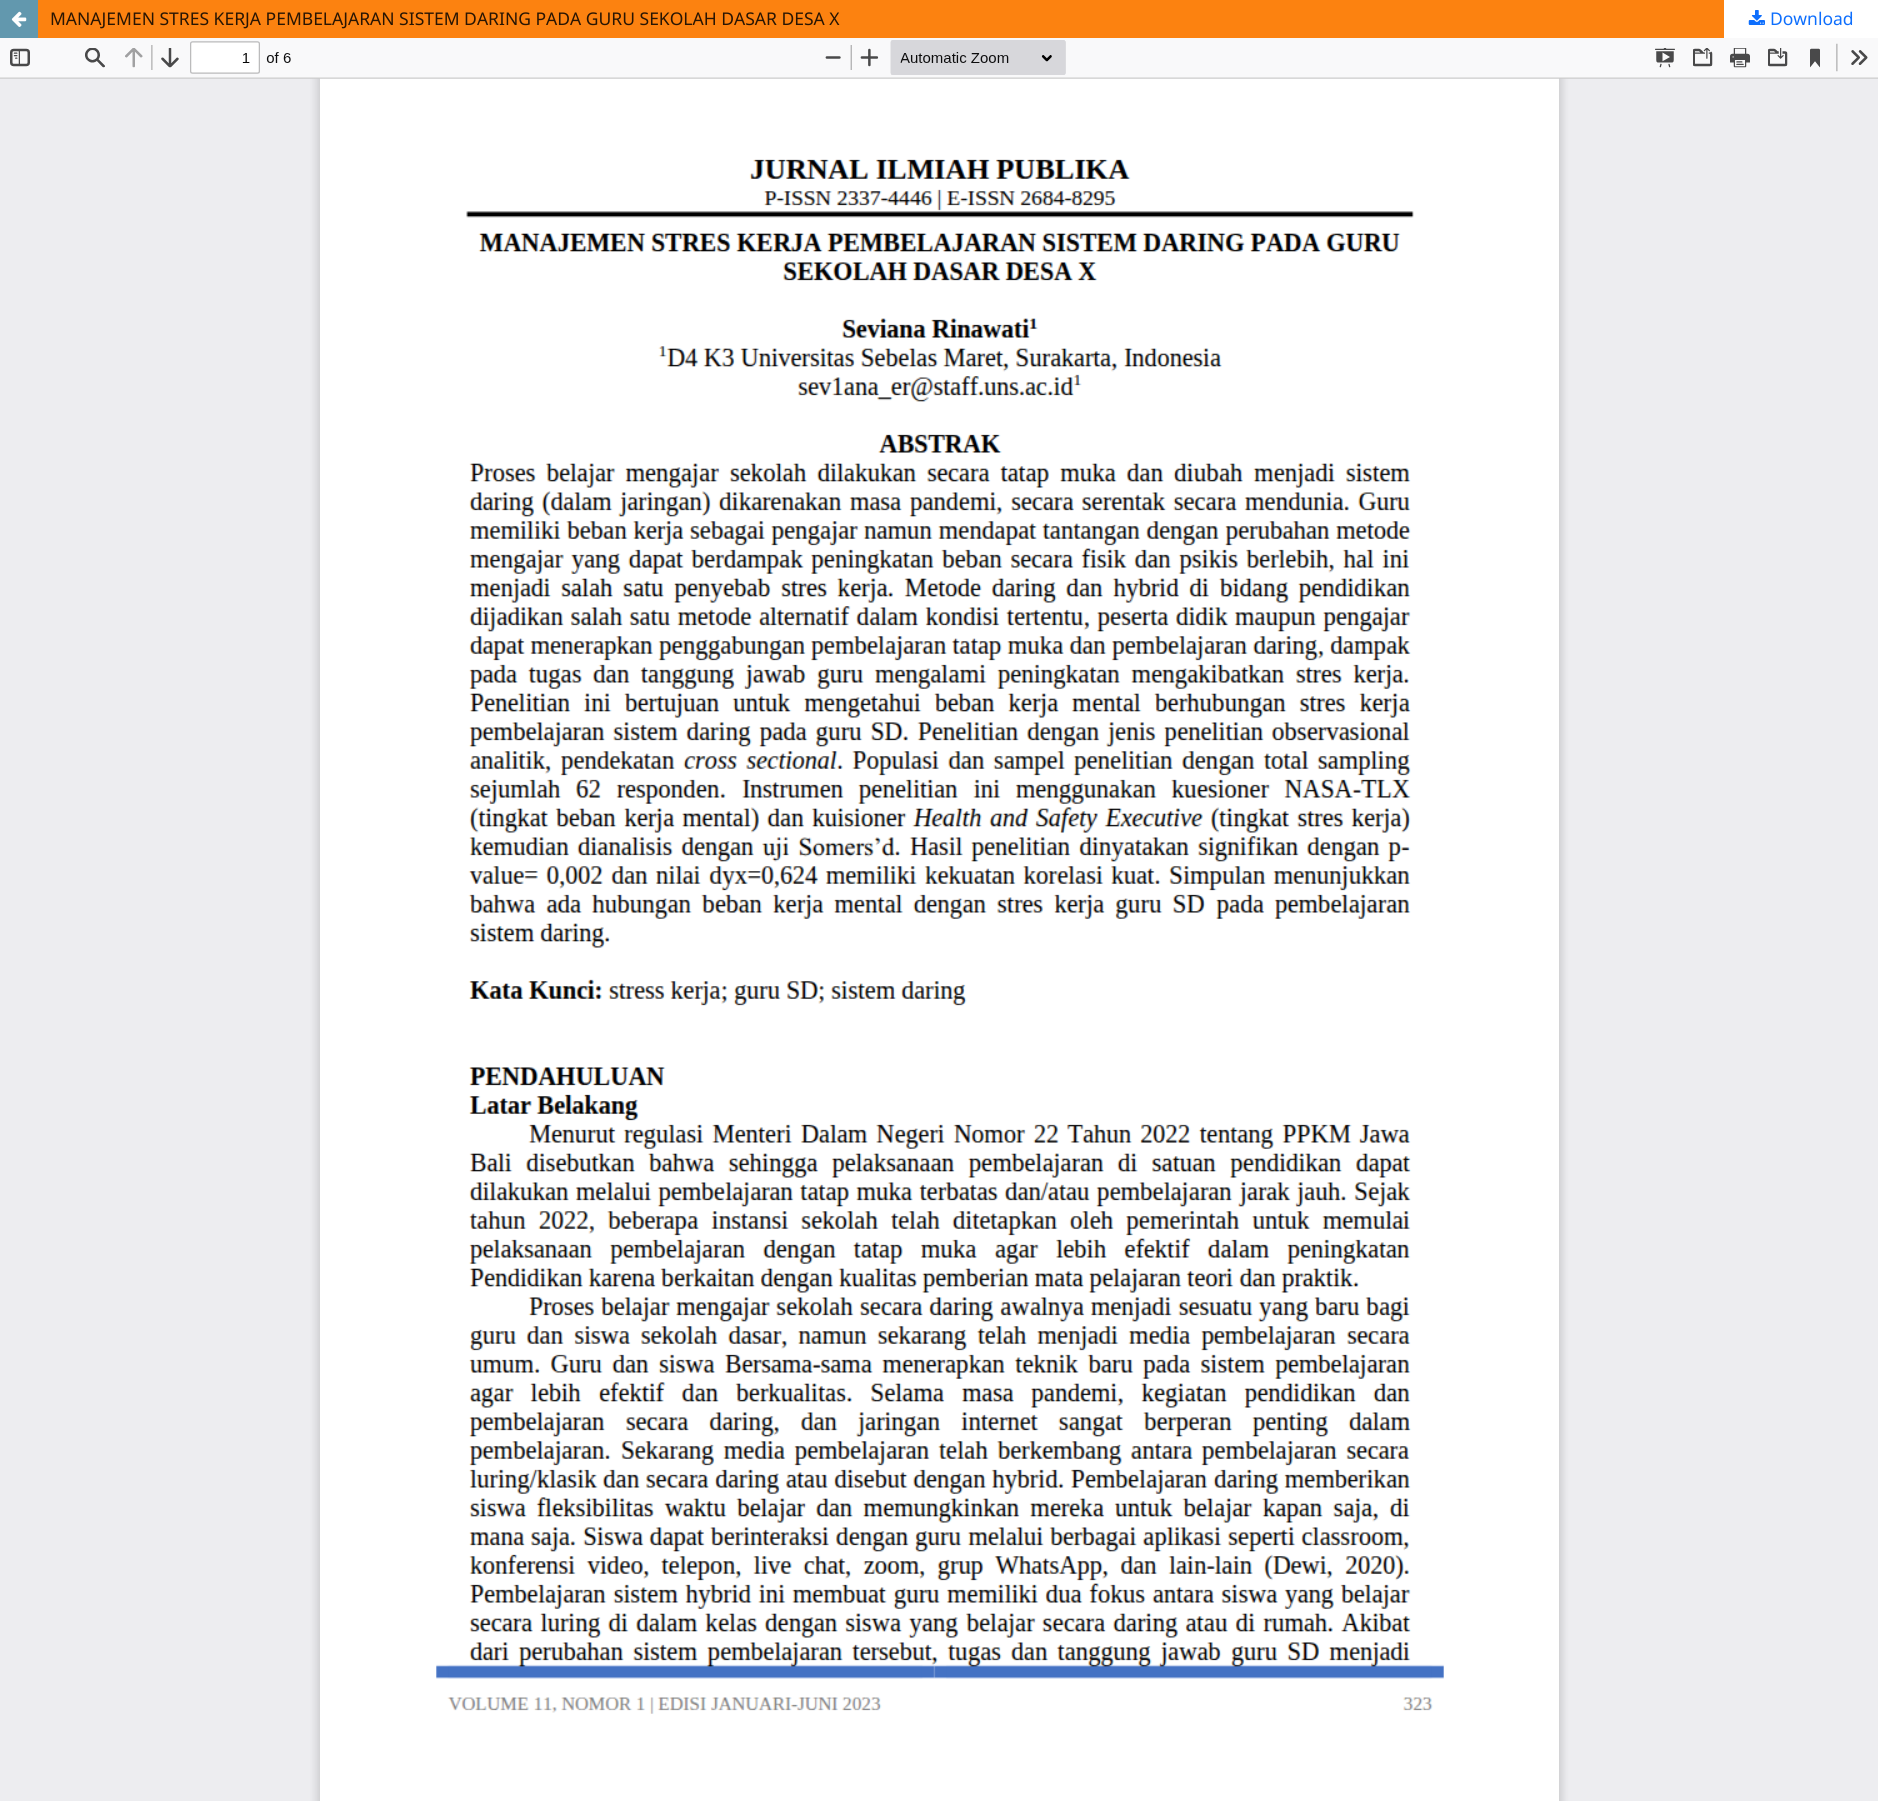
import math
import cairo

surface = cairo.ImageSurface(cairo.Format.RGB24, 1878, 1801)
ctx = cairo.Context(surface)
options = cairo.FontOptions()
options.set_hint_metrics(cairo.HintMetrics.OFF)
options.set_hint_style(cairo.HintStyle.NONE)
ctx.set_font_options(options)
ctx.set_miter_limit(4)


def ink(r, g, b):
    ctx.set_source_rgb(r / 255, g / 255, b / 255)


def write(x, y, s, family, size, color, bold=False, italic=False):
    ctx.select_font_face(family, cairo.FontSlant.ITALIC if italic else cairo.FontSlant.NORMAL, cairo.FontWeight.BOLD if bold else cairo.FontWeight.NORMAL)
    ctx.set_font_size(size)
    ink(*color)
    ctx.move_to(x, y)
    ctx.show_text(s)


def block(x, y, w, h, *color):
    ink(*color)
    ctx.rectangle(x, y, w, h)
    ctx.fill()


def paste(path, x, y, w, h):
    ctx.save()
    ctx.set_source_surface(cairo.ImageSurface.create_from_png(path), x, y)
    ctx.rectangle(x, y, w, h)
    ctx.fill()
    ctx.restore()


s1 = dict(family="Noto Sans", size=17.5, color=(40, 21, 3))
s2 = dict(family="Noto Sans", size=17.5, color=(13, 110, 253))

ink(255, 255, 255)
ctx.paint()
block(38, 0, 1686, 38, 252, 130, 16)
block(0, 0, 38, 38, 98, 152, 174)
paste("pic1.png", 11, 11, 16, 16)
write(50, 25, "MANAJEMEN STRES KERJA PEMBELAJARAN SISTEM DARING PADA GURU SEKOLAH DASAR DESA X", **s1)
paste("pic2.png", 1748, 10, 17, 15)
write(1770, 25, "Download", **s2)
paste("pic3.png", 0, 38, 1878, 1763)
surface.write_to_png("screenshot.png")
